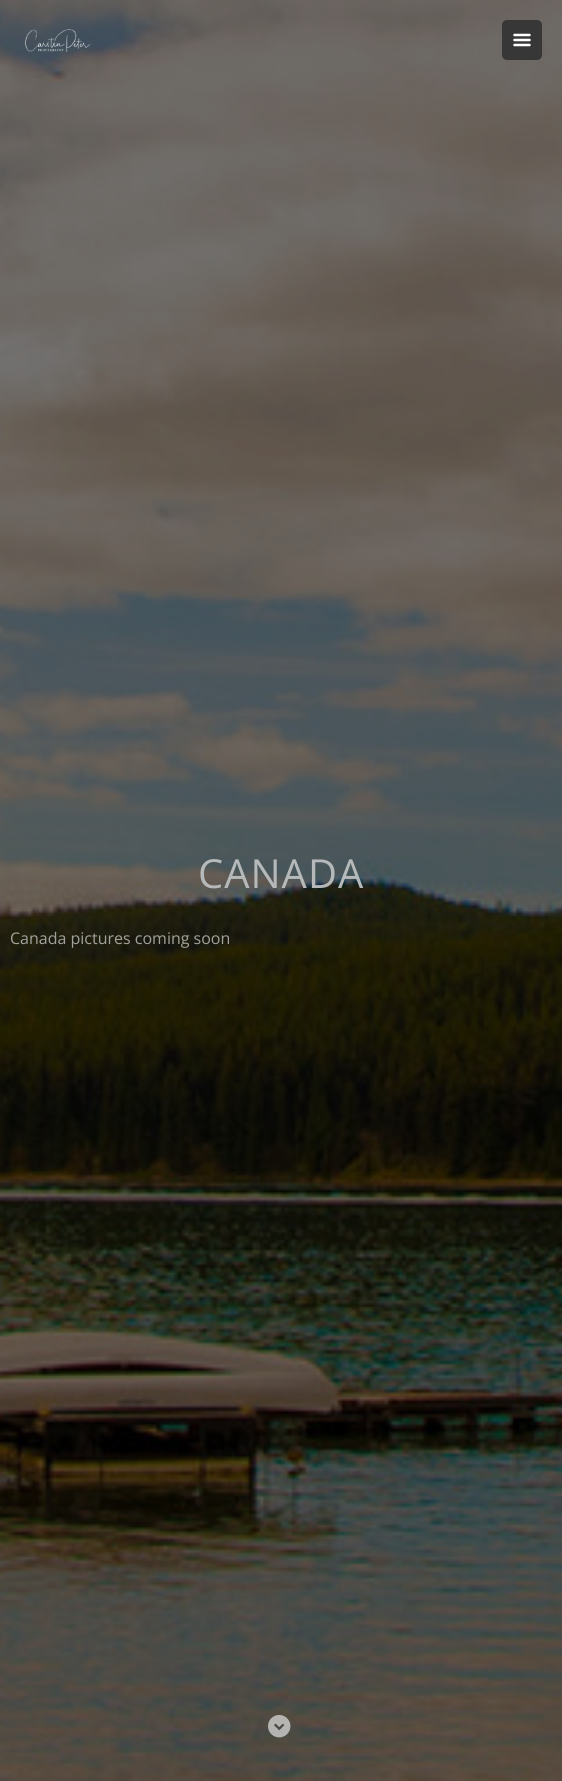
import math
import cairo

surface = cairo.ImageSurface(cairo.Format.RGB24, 562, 1781)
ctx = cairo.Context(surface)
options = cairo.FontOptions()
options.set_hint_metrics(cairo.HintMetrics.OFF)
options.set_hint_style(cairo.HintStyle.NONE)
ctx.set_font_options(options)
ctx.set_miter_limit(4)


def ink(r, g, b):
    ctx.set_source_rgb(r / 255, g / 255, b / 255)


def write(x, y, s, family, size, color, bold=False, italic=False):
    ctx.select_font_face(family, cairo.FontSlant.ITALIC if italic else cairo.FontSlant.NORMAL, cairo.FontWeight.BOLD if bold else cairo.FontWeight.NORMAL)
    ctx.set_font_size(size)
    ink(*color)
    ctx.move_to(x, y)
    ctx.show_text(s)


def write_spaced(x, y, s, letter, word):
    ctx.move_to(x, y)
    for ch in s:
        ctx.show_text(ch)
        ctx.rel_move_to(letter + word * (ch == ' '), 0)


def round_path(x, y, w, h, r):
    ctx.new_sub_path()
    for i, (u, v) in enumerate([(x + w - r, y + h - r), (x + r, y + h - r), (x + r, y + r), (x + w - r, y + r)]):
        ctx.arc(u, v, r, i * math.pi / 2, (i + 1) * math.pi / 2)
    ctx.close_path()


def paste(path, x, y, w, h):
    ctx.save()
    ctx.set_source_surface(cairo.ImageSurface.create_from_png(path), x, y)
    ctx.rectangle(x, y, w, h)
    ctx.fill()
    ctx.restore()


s1 = dict(family="Open Sans", size=16, color=(162, 162, 156))

ink(255, 255, 255)
ctx.paint()
paste("pic3.png", 0, 0, 562, 1781)
paste("pic1.png", 25, 29, 66, 23)
ink(55, 55, 55)
round_path(502, 20, 40, 40, 5)
ctx.fill()
paste("pic2.png", 513, 33, 18, 14)
ctx.select_font_face("Open Sans")
ctx.set_font_size(40)
ink(181, 185, 185)
write_spaced(198, 888, "CANADA", 1, 0)
write(10, 944, "Canada pictures coming soon", **s1)
paste("pic4.png", 268, 1715, 23, 23)
surface.write_to_png("screenshot.png")
